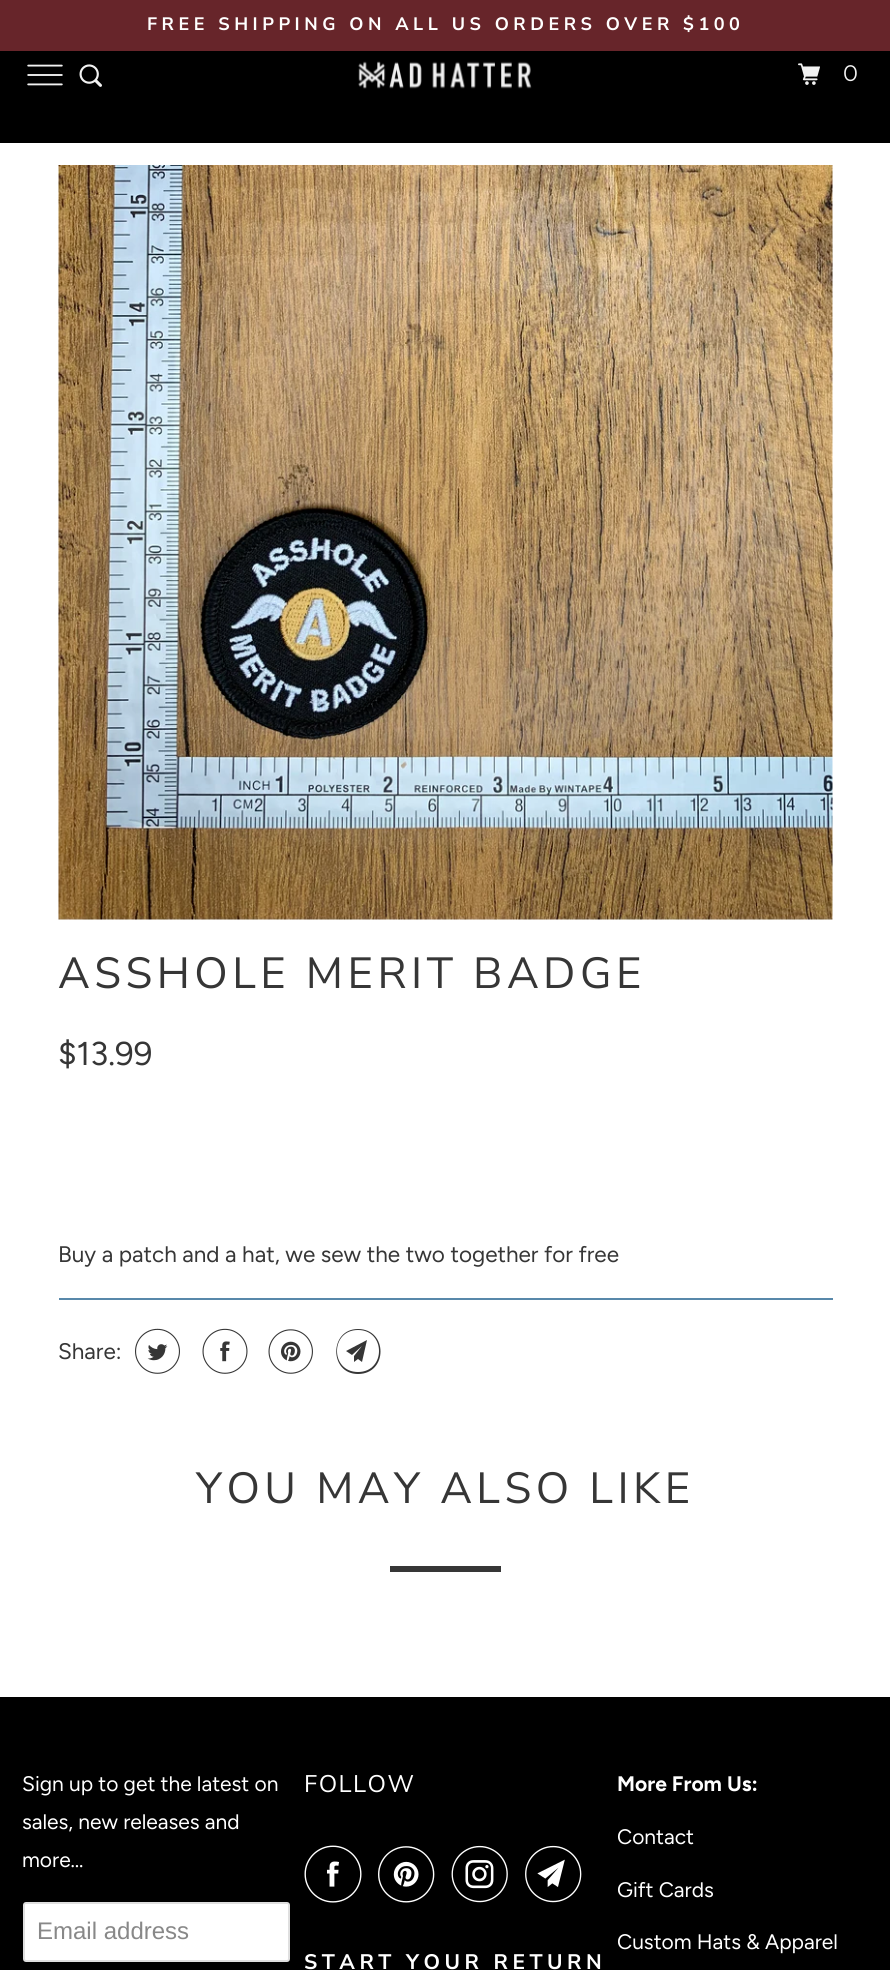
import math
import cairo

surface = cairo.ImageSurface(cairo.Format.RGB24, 890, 1970)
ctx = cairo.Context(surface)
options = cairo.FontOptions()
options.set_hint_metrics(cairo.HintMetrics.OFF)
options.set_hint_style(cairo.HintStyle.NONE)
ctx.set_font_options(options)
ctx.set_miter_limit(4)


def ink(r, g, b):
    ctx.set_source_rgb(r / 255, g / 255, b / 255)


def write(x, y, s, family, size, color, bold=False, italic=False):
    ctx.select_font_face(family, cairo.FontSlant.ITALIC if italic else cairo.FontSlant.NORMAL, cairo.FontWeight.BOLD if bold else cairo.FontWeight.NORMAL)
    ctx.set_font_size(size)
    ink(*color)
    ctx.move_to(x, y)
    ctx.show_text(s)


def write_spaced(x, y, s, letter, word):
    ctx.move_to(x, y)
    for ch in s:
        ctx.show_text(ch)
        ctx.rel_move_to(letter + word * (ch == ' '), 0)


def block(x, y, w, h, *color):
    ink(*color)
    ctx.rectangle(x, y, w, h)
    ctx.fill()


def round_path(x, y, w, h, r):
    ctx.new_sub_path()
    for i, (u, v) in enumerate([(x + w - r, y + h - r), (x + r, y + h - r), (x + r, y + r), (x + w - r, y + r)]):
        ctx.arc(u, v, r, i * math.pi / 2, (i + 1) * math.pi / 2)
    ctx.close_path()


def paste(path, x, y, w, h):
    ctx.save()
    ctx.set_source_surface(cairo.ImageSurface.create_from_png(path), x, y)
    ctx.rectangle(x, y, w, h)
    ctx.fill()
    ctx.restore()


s1 = dict(family="Montserrat", size=22.5, color=(242, 242, 242))
s2 = dict(family="Figtree", size=33, color=(54, 54, 54))
s3 = dict(family="Figtree", size=22.5, color=(54, 54, 54))
s4 = dict(family="Figtree", size=21, color=(255, 255, 255))
s5 = dict(family="Liberation Sans", size=24, color=(136, 136, 136))
s6 = dict(family="Figtree", size=21, color=(255, 255, 255), bold=True)

ink(0, 0, 0)
ctx.paint()
block(0, 0, 890, 51, 103, 37, 42)
ctx.select_font_face("Nunito Sans", cairo.FontSlant.NORMAL, cairo.FontWeight.BOLD)
ctx.set_font_size(18)
ink(255, 255, 255)
write_spaced(147, 30, "FREE SHIPPING ON ALL US ORDERS OVER $100", 4.5, 0)
paste("pic1.png", 27, 64, 36, 22)
paste("pic2.png", 79, 64, 23, 23)
paste("pic3.png", 358, 61, 174, 28)
paste("pic4.png", 798, 63, 22, 22)
write(843, 81, "0", **s1)
block(0, 143, 890, 1554, 255, 255, 255)
paste("pic5.png", 58, 165, 775, 755)
ctx.select_font_face("Nunito Sans")
ctx.set_font_size(43.5)
ink(54, 54, 54)
write_spaced(58, 988, "ASSHOLE MERIT BADGE", 4.5, 0)
write(58, 1065, "$13.99", **s2)
write(58, 1262, "Buy a patch and a hat, we sew the two together for free", **s3)
block(59, 1298, 774, 2, 88, 136, 170)
write(58, 1359, "Share:", **s3)
paste("pic6.png", 135, 1328, 45, 46)
paste("pic7.png", 202, 1328, 46, 46)
paste("pic8.png", 268, 1329, 45, 45)
ctx.new_path()
ctx.move_to(362, 1362)
ctx.line_to(358, 1359)
ctx.line_to(354, 1362)
ctx.line_to(354, 1356)
ctx.line_to(362, 1346)
ctx.line_to(352, 1355)
ctx.line_to(346, 1351)
ctx.line_to(367, 1340)
ctx.close_path()
ctx.move_to(358, 1330)
ctx.curve_to(330, 1330, 330, 1372, 358, 1372)
ctx.curve_to(386, 1372, 386, 1330, 358, 1330)
ctx.close_path()
ctx.move_to(358, 1374)
ctx.curve_to(329, 1374, 329, 1329, 358, 1329)
ctx.curve_to(388, 1329, 388, 1374, 358, 1374)
ctx.close_path()
ctx.fill()
ctx.select_font_face("Nunito Sans")
ctx.set_font_size(43.5)
write_spaced(196, 1503, "YOU MAY ALSO LIKE", 4.5, 0)
block(390, 1566, 111, 6, 54, 54, 54)
write(22, 1791, "Sign up to get the latest on", **s4)
write(22, 1829, "sales, new releases and", **s4)
write(22, 1867, "more…", **s4)
round_path(24, 1903, 265, 58, 2)
ctx.fill_preserve()
ink(223, 223, 223)
ctx.stroke()
write(37, 1939, "Email address", **s5)
ctx.select_font_face("Nunito Sans")
ink(255, 255, 255)
write_spaced(304, 1792, "FOLLOW", 1.5, 0)
paste("pic9.png", 304, 1845, 58, 58)
paste("pic10.png", 378, 1846, 57, 57)
paste("pic11.png", 451, 1845, 57, 58)
paste("pic12.png", 525, 1845, 57, 58)
ctx.select_font_face("Nunito Sans", cairo.FontSlant.NORMAL, cairo.FontWeight.BOLD)
ctx.set_font_size(21)
write_spaced(304, 1969, "START YOUR RETURN", 4.5, 0)
write(617, 1791, "More From Us:", **s6)
write(617, 1844, "Contact", **s4)
write(617, 1897, "Gift Cards", **s4)
write(617, 1949, "Custom Hats & Apparel", **s4)
surface.write_to_png("screenshot.png")
